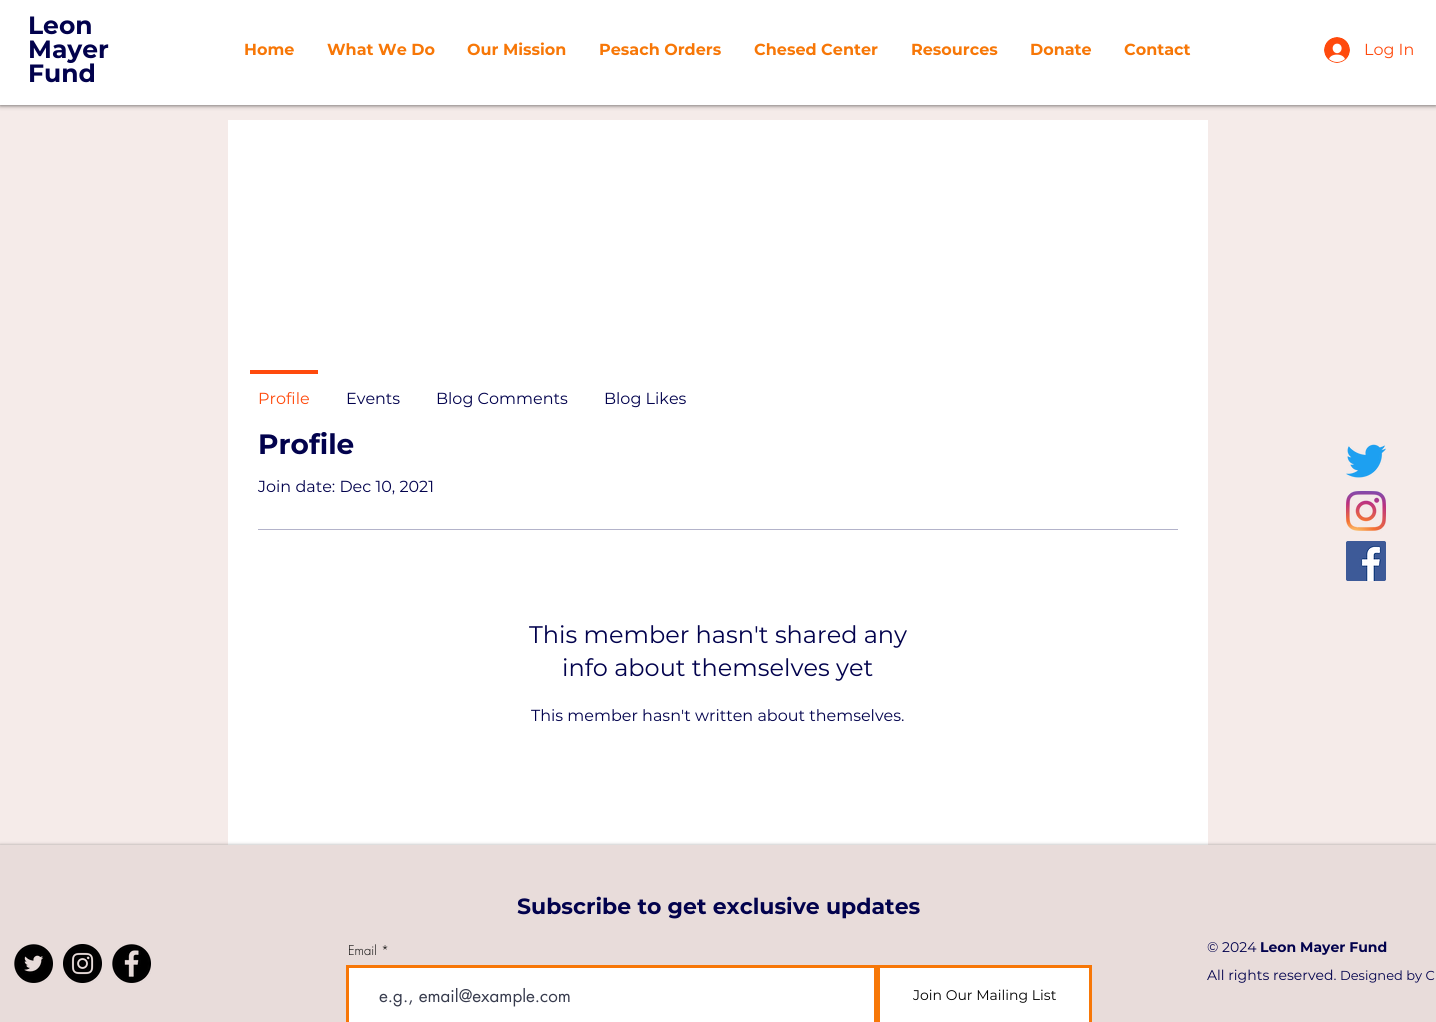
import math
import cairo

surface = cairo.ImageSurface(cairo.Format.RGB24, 1436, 1022)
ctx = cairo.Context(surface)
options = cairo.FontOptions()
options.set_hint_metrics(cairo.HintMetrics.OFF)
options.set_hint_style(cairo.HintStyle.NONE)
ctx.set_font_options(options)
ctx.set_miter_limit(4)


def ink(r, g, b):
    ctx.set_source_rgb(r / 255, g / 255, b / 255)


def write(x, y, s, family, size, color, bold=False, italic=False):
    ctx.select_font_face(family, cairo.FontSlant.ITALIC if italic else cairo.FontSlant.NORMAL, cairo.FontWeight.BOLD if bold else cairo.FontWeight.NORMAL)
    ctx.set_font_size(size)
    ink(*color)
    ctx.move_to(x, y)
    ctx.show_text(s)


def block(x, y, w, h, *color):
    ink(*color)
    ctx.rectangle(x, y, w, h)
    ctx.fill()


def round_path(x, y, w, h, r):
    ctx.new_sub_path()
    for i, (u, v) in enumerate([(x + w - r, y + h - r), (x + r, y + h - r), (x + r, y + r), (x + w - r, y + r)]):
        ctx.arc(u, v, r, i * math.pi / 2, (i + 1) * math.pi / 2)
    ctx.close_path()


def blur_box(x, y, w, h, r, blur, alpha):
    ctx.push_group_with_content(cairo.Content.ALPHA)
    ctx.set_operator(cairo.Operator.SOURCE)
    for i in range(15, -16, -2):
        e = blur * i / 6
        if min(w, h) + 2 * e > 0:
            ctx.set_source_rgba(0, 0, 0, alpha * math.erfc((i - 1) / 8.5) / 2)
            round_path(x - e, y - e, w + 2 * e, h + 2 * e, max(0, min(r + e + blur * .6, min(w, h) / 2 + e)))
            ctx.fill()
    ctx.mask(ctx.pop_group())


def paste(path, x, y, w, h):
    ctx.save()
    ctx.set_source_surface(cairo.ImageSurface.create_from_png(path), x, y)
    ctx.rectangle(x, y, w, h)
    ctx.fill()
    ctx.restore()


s1 = dict(family="Montserrat", size=25, color=(2, 2, 77), bold=True)
s2 = dict(family="Montserrat", size=16, color=(247, 119, 7), bold=True)
s3 = dict(family="Montserrat", size=16, color=(255, 74, 13))
s4 = dict(family="Montserrat", size=16, color=(2, 2, 77))
s5 = dict(family="Montserrat", size=28, color=(2, 2, 77), bold=True)
s6 = dict(family="Montserrat", size=24, color=(2, 2, 77))
s7 = dict(family="Montserrat", size=22, color=(2, 2, 77), bold=True)
s8 = dict(family="futura Light", size=13, color=(0, 0, 0))
s9 = dict(family="futura", size=17, color=(55, 59, 77))
s10 = dict(family="Montserrat", size=14, color=(0, 0, 0))
s11 = dict(family="Montserrat", size=14, color=(2, 2, 77))
s12 = dict(family="Montserrat", size=14, color=(2, 2, 77), bold=True)
s13 = dict(family="Montserrat", size=13, color=(2, 2, 77))

ink(245, 235, 233)
ctx.paint()
ink(0, 0, 0)
blur_box(0, 0, 1436, 105, 0, 2.5, 0.7)
block(0, 0, 1436, 105, 255, 255, 255)
write(28, 34, "Leon", **s1)
write(28, 58, "Mayer", **s1)
write(28, 82, "Fund", **s1)
write(244, 55, "Home", **s2)
write(327, 55, "What We Do", **s2)
write(467, 55, "Our Mission", **s2)
write(599, 55, "Pesach Orders", **s2)
write(754, 55, "Chesed Center", **s2)
write(911, 55, "Resources", **s2)
write(1030, 55, "Donate", **s2)
write(1124, 55, "Contact", **s2)
paste("pic1.png", 1324, 37, 26, 26)
write(1364, 55, "Log In", **s3)
block(228, 120, 980, 725, 255, 255, 255)
block(250, 370, 68, 4, 255, 74, 13)
write(258, 404, "Profile", **s3)
write(346, 404, "Events", **s4)
write(436, 404, "Blog Comments", **s4)
write(604, 404, "Blog Likes", **s4)
write(258, 454, "Profile", **s5)
write(258, 492, "Join date: Dec 10, 2021", **s4)
block(258, 529, 920, 1, 179, 179, 202)
write(529, 643, "This member hasn't shared any", **s6)
write(562, 676, "info about themselves yet", **s6)
write(531, 721, "This member hasn't written about themselves.", **s4)
paste("pic2.png", 1346, 444, 40, 34)
paste("pic3.png", 1346, 491, 40, 40)
paste("pic4.png", 1346, 541, 40, 40)
ink(0, 0, 0)
blur_box(0, 846, 1436, 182, 0, 2, 0.6)
block(0, 845, 1436, 177, 232, 220, 218)
paste("pic5.png", 14, 944, 39, 39)
paste("pic6.png", 63, 944, 39, 39)
paste("pic7.png", 112, 944, 39, 39)
write(517, 914, "Subscribe to get exclusive updates", **s7)
write(348, 955, "Email *", **s8)
ink(255, 255, 255)
ctx.rectangle(347.5, 966.5, 528, 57)
ctx.fill_preserve()
ink(247, 119, 7)
ctx.set_line_width(3)
ctx.stroke()
write(379, 1002, "e.g., email@example.com", **s9)
ink(255, 255, 255)
ctx.rectangle(878.5, 966.5, 212, 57)
ctx.fill_preserve()
ink(247, 119, 7)
ctx.stroke()
write(913, 1000, "Join Our Mailing List", **s10)
write(1207, 952, "© 2024", **s11)
write(1260, 952, "Leon Mayer Fund", **s12)
write(1207, 980, "All rights reserved.", **s11)
write(1340, 980, "Designed by C", **s13)
surface.write_to_png("screenshot.png")
